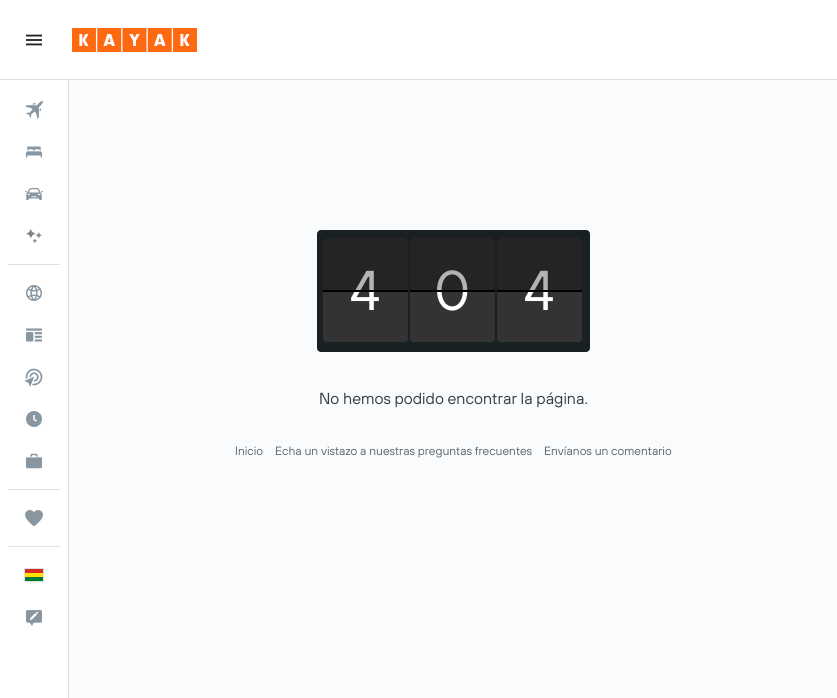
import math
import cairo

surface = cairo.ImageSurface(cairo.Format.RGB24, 837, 698)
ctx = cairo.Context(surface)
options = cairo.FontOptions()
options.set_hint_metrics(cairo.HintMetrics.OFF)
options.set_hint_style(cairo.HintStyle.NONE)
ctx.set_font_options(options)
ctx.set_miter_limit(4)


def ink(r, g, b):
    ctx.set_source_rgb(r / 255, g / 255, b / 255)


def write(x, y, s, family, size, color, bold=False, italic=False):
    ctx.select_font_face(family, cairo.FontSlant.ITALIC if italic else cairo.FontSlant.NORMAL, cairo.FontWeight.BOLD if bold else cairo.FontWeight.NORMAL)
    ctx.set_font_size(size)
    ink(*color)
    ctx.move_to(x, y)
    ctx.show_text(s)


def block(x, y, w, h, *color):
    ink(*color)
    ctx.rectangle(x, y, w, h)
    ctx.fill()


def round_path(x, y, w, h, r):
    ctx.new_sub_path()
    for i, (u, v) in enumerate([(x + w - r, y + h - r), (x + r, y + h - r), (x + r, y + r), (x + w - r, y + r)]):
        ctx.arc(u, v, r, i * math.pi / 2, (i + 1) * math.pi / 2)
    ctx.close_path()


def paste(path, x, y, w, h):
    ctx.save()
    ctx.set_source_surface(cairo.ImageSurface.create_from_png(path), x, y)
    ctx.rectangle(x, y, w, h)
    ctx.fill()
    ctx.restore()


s1 = dict(family="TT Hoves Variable", size=56, color=(255, 255, 255))
s2 = dict(family="TT Hoves Variable", size=16, color=(54, 63, 69))
s3 = dict(family="TT Hoves Variable", size=12, color=(90, 104, 114))

ink(250, 251, 252)
ctx.paint()
block(0, 0, 837, 79, 255, 255, 255)
block(0, 79, 837, 1, 217, 226, 232)
paste("pic1.png", 26, 34, 16, 12)
paste("pic2.png", 72, 28, 125, 24)
block(0, 80, 68, 618, 255, 255, 255)
block(68, 80, 1, 618, 217, 226, 232)
paste("pic3.png", 25, 101, 18, 18)
paste("pic4.png", 26, 146, 16, 12)
paste("pic5.png", 25, 187, 18, 13)
paste("pic6.png", 26, 229, 16, 14)
block(8, 264, 52, 1, 217, 226, 232)
paste("pic7.png", 26, 285, 16, 16)
paste("pic8.png", 26, 328, 16, 14)
paste("pic9.png", 24, 368, 19, 19)
paste("pic10.png", 26, 411, 16, 16)
paste("pic11.png", 26, 453, 16, 16)
block(8, 489, 52, 1, 217, 226, 232)
paste("pic12.png", 25, 510, 18, 16)
block(8, 546, 52, 1, 217, 226, 232)
ctx.rectangle(24.5, 568.5, 19, 13)
ctx.set_line_width(1)
ctx.stroke()
block(25, 577, 18, 4, 0, 121, 52)
block(25, 569, 18, 4, 213, 43, 30)
block(25, 573, 18, 4, 255, 224, 0)
paste("pic13.png", 26, 610, 16, 16)
ink(25, 32, 36)
round_path(317, 230, 273, 122, 4)
ctx.fill()
ink(51, 51, 51)
round_path(323, 238, 85, 104, 3)
ctx.fill()
write(350, 310, "4", **s1)
ctx.set_source_rgba(0, 0, 0, 0.3)
ctx.rectangle(323, 238, 85, 52)
ctx.fill()
block(323, 290, 85, 2, 0, 0, 0)
ink(51, 51, 51)
round_path(410, 238, 85, 104, 3)
ctx.fill()
write(434, 310, "0", **s1)
ctx.set_source_rgba(0, 0, 0, 0.3)
ctx.rectangle(410, 238, 85, 52)
ctx.fill()
block(410, 290, 85, 2, 0, 0, 0)
ink(51, 51, 51)
round_path(497, 238, 85, 104, 3)
ctx.fill()
write(524, 310, "4", **s1)
ctx.set_source_rgba(0, 0, 0, 0.3)
ctx.rectangle(497, 238, 85, 52)
ctx.fill()
block(497, 290, 85, 2, 0, 0, 0)
write(319, 404, "No hemos podido encontrar la página.", **s2)
write(235, 455, "Inicio", **s3)
write(275, 455, "Echa un vistazo a nuestras preguntas frecuentes", **s3)
write(544, 455, "Envíanos un comentario", **s3)
surface.write_to_png("screenshot.png")
